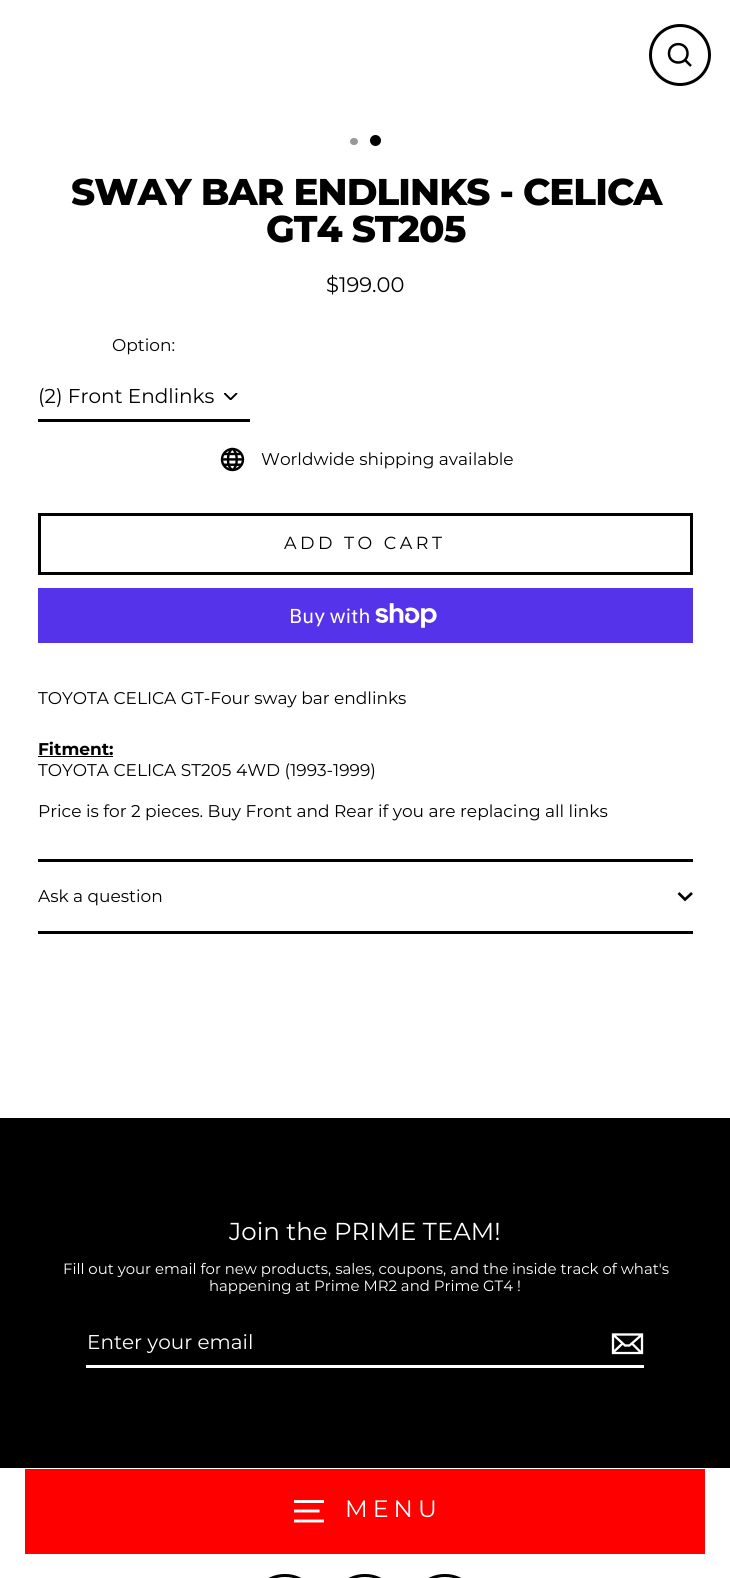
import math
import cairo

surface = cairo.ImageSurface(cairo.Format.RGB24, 730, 1578)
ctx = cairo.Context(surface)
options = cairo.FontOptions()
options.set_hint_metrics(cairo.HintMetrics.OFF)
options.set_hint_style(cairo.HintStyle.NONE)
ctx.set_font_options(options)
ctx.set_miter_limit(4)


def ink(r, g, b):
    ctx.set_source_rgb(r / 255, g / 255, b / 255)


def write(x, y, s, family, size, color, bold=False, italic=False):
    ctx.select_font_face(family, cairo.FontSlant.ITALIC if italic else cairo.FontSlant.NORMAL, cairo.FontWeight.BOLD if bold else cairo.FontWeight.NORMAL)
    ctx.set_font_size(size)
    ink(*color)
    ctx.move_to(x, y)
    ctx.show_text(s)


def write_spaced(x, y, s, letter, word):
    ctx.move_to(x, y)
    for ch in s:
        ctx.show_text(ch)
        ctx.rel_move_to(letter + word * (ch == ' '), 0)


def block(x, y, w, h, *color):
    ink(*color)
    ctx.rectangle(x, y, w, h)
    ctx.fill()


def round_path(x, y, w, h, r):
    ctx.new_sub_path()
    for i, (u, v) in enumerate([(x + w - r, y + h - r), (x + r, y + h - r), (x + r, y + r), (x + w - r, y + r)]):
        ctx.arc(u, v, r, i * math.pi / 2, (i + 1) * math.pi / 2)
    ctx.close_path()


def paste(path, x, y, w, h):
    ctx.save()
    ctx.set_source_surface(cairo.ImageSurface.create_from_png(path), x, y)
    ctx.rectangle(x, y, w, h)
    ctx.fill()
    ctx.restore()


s1 = dict(family="Montserrat", size=21, color=(0, 0, 0))
s2 = dict(family="Montserrat", size=17, color=(0, 0, 0))
s3 = dict(family="Montserrat", size=20, color=(0, 0, 0))
s4 = dict(family="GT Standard", size=20, color=(255, 255, 255))
s5 = dict(family="Montserrat", size=17, color=(0, 0, 0), bold=True)
s6 = dict(family="Montserrat", size=24.5, color=(255, 255, 255))
s7 = dict(family="Montserrat", size=14.9, color=(255, 255, 255))
s8 = dict(family="Montserrat", size=20, color=(255, 255, 255))

ink(255, 255, 255)
ctx.paint()
ctx.arc(680, 55, 29.5, 0, 2 * math.pi)
ink(0, 0, 0)
ctx.set_line_width(3)
ctx.stroke()
ctx.new_path()
ctx.move_to(687.5, 53.5)
ctx.curve_to(687.5, 65.5, 669, 65.5, 669, 53.5)
ctx.curve_to(669, 41, 687.5, 41, 687.5, 53.5)
ctx.close_path()
ctx.move_to(691, 66)
ctx.line_to(685, 60)
ctx.set_line_width(2.5)
ctx.stroke()
ink(153, 153, 153)
round_path(350, 138, 8, 7, 3.5)
ctx.fill()
ink(0, 0, 0)
ctx.arc(375.5, 140.5, 5.5, 0, 2 * math.pi)
ctx.fill()
ctx.select_font_face("Montserrat ExtraBold")
ctx.set_font_size(37.25)
write_spaced(71, 205, "SWAY BAR ENDLINKS - CELICA", -0.9, 0)
write_spaced(266, 242, "GT4 ST205", -0.9, 0)
write(326, 292, "$199.00", **s1)
write(112, 351, "Option:", **s2)
paste("pic1.png", 224, 393, 14, 7)
block(38, 419, 212, 3, 0, 0, 0)
write(38, 403, "(2) Front Endlinks", **s3)
paste("pic2.png", 220, 447, 25, 25)
write(261, 465, "Worldwide shipping available", **s2)
ctx.rectangle(39.5, 514.5, 652, 59)
ctx.set_line_width(3)
ctx.stroke()
ctx.set_font_size(17.5)
write_spaced(284, 549, "ADD TO CART", 3.5, 0)
block(38, 588, 655, 55, 84, 51, 235)
write(289, 623, "Buy with", **s4)
paste("pic3.png", 375, 603, 62, 25)
write(38, 704, "TOYOTA CELICA GT-Four sway bar endlinks", **s2)
write(38, 755, "Fitment:", **s5)
block(38, 756, 75, 1, 0, 0, 0)
write(38, 776, "TOYOTA CELICA ST205 4WD (1993-1999)", **s2)
write(38, 817, "Price is for 2 pieces. Buy Front and Rear if you are replacing all links", **s2)
block(38, 931, 655, 3, 0, 0, 0)
block(38, 859, 655, 3, 0, 0, 0)
write(38, 902, "Ask a question", **s2)
ctx.new_path()
ctx.move_to(678.5, 893)
ctx.line_to(685, 899.5)
ctx.line_to(692, 893)
ctx.set_line_width(2.7)
ctx.stroke()
block(0, 1118, 730, 350, 0, 0, 0)
write(229, 1240, "Join the PRIME TEAM!", **s6)
write(63, 1274, "Fill out your email for new products, sales, coupons, and the inside track of what's", **s7)
write(209, 1291, "happening at Prime MR2 and Prime GT4 !", **s7)
block(86, 1365, 558, 3, 255, 255, 255)
write(87, 1349, "Enter your email", **s8)
ctx.new_path()
ctx.move_to(642, 1353)
ctx.line_to(613, 1353)
ctx.line_to(613, 1334.5)
ctx.line_to(642, 1334.5)
ctx.close_path()
ctx.move_to(613, 1334.5)
ctx.line_to(625, 1345.5)
ctx.line_to(629.5, 1345.5)
ctx.line_to(642, 1334.5)
ctx.move_to(622.5, 1343.5)
ctx.line_to(613, 1352.5)
ctx.move_to(641.5, 1353)
ctx.line_to(632, 1343.5)
ctx.set_line_width(2.3)
ctx.stroke()
round_path(252.5, 1575.5, 65, 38, 32)
ink(0, 0, 0)
ctx.set_line_width(3)
ctx.stroke()
round_path(332.5, 1575.5, 65, 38, 32)
ctx.stroke()
round_path(412.5, 1575.5, 65, 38, 32)
ctx.stroke()
block(25, 1469, 680, 85, 255, 0, 0)
ctx.new_path()
ctx.move_to(294, 1501.5)
ctx.line_to(324, 1501.5)
ctx.move_to(294, 1511)
ctx.line_to(319.5, 1511)
ctx.move_to(294, 1521)
ctx.line_to(324, 1521)
ink(255, 255, 255)
ctx.set_line_width(2.9)
ctx.stroke()
ctx.set_font_size(23.75)
write_spaced(345, 1517, "MENU", 5, 0)
surface.write_to_png("screenshot.png")
